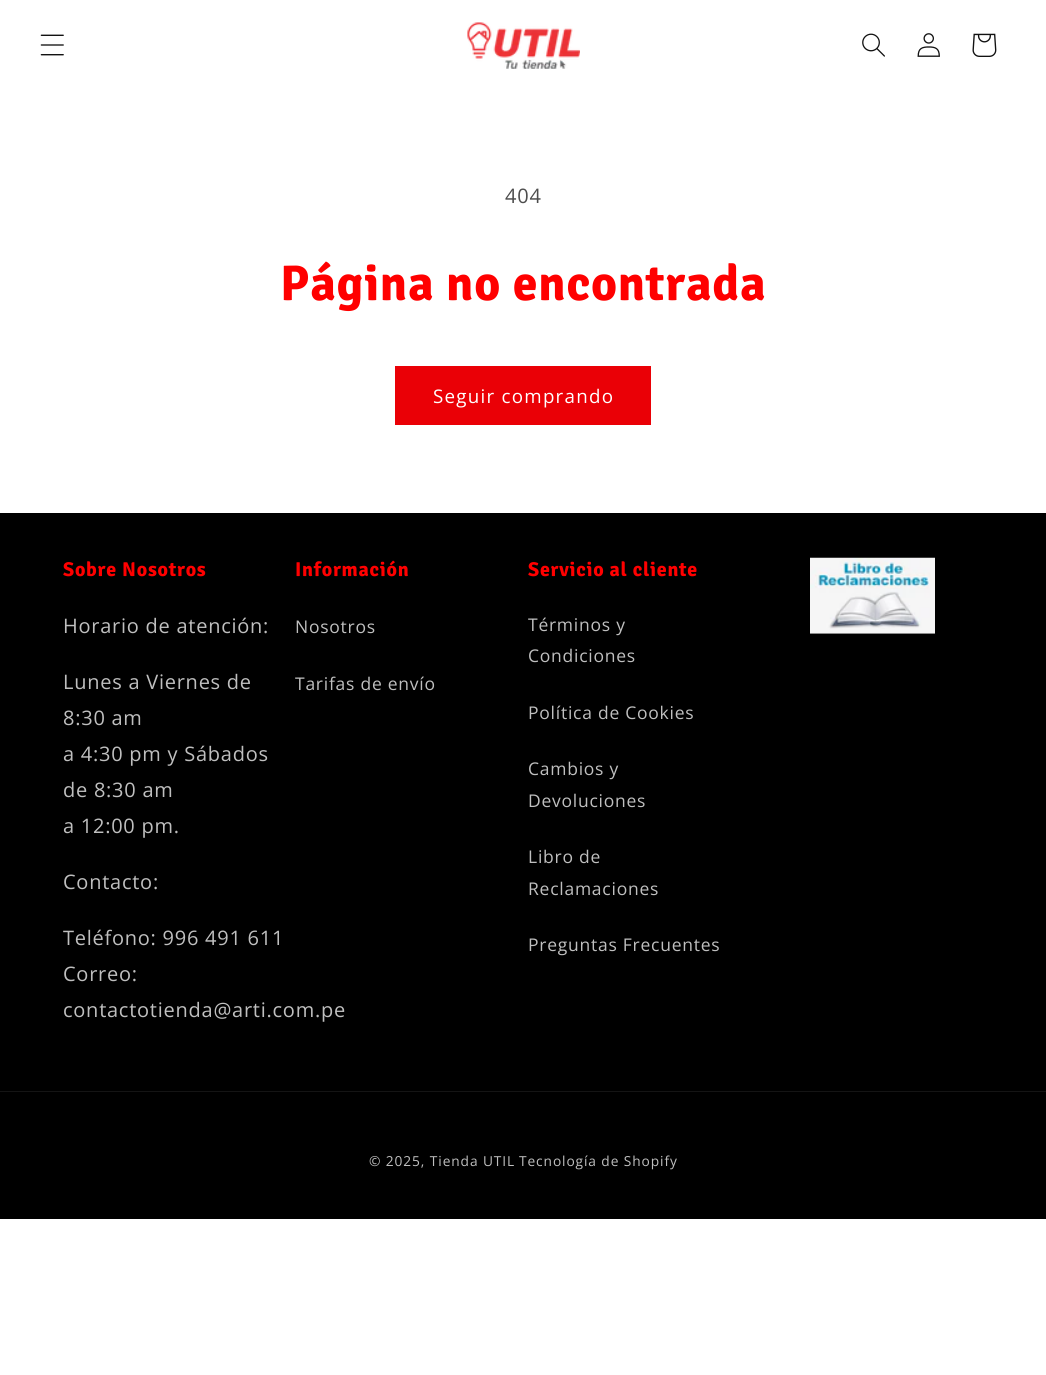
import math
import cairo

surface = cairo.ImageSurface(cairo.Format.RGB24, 1046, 1375)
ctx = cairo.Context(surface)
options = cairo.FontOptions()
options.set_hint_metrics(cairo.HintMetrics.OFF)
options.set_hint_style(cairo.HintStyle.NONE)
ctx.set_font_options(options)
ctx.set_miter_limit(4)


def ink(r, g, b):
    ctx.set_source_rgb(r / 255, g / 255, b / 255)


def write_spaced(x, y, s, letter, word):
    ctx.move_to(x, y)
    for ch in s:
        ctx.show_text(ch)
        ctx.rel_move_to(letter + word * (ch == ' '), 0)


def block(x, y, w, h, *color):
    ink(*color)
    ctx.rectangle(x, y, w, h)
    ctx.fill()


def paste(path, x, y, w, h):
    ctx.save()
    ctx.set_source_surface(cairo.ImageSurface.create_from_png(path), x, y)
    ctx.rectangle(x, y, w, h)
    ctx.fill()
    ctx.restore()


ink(255, 255, 255)
ctx.paint()
paste("pic1.png", 40, 34, 24, 22)
paste("pic2.png", 467, 22, 113, 47)
paste("pic3.png", 862, 33, 23, 24)
paste("pic4.png", 917, 33, 23, 24)
paste("pic5.png", 972, 33, 25, 24)
ctx.select_font_face("Open Sans")
ctx.set_font_size(20)
ink(77, 77, 77)
write_spaced(505, 203, "404", 0.75, 0)
ctx.select_font_face("Signika", cairo.FontSlant.NORMAL, cairo.FontWeight.BOLD)
ctx.set_font_size(50)
ink(255, 0, 0)
write_spaced(280, 300, "Página no encontrada", 0.75, 0)
block(395, 366, 256, 59, 234, 0, 6)
ctx.select_font_face("Open Sans")
ctx.set_font_size(18.75)
ink(255, 255, 255)
write_spaced(433, 403, "Seguir comprando", 1.25, 0)
block(0, 513, 1046, 706, 0, 0, 0)
ctx.select_font_face("Signika", cairo.FontSlant.NORMAL, cairo.FontWeight.BOLD)
ctx.set_font_size(20)
ink(255, 0, 0)
write_spaced(63, 576, "Sobre Nosotros", 0.75, 0)
ctx.select_font_face("Open Sans")
ink(191, 191, 191)
write_spaced(63, 633, "Horario de atención:", 0.75, 0)
write_spaced(63, 689, "Lunes a Viernes de", 0.75, 0)
write_spaced(63, 725, "8:30 am", 0.75, 0)
write_spaced(63, 761, "a 4:30 pm y Sábados", 0.75, 0)
write_spaced(63, 797, "de 8:30 am", 0.75, 0)
write_spaced(63, 833, "a 12:00 pm.", 0.75, 0)
write_spaced(63, 889, "Contacto:", 0.75, 0)
write_spaced(63, 945, "Teléfono: 996 491 611", 0.75, 0)
write_spaced(63, 981, "Correo:", 0.75, 0)
write_spaced(63, 1017, "contactotienda@arti.com.pe", 0.75, 0)
ctx.select_font_face("Signika", cairo.FontSlant.NORMAL, cairo.FontWeight.BOLD)
ink(255, 0, 0)
write_spaced(295, 576, "Información", 0.75, 0)
ctx.select_font_face("Open Sans")
ctx.set_font_size(17.5)
ink(191, 191, 191)
write_spaced(295, 633, "Nosotros", 0.75, 0)
write_spaced(295, 690, "Tarifas de envío", 0.75, 0)
ctx.select_font_face("Signika", cairo.FontSlant.NORMAL, cairo.FontWeight.BOLD)
ctx.set_font_size(20)
ink(255, 0, 0)
write_spaced(528, 576, "Servicio al cliente", 0.75, 0)
ctx.select_font_face("Open Sans")
ctx.set_font_size(17.5)
ink(191, 191, 191)
write_spaced(528, 631, "Términos y", 0.75, 0)
write_spaced(528, 662, "Condiciones", 0.75, 0)
write_spaced(528, 719, "Política de Cookies", 0.75, 0)
write_spaced(528, 775, "Cambios y", 0.75, 0)
write_spaced(528, 807, "Devoluciones", 0.75, 0)
write_spaced(528, 863, "Libro de", 0.75, 0)
write_spaced(528, 895, "Reclamaciones", 0.75, 0)
write_spaced(528, 951, "Preguntas Frecuentes", 0.75, 0)
paste("pic6.png", 810, 557, 125, 77)
block(0, 1091, 1046, 1, 20, 20, 20)
ctx.set_font_size(13.75)
ink(191, 191, 191)
write_spaced(369, 1166, "© 2025, Tienda UTIL", 0.9, 0)
write_spaced(519, 1166, "Tecnología de Shopify", 0.9, 0)
surface.write_to_png("screenshot.png")
